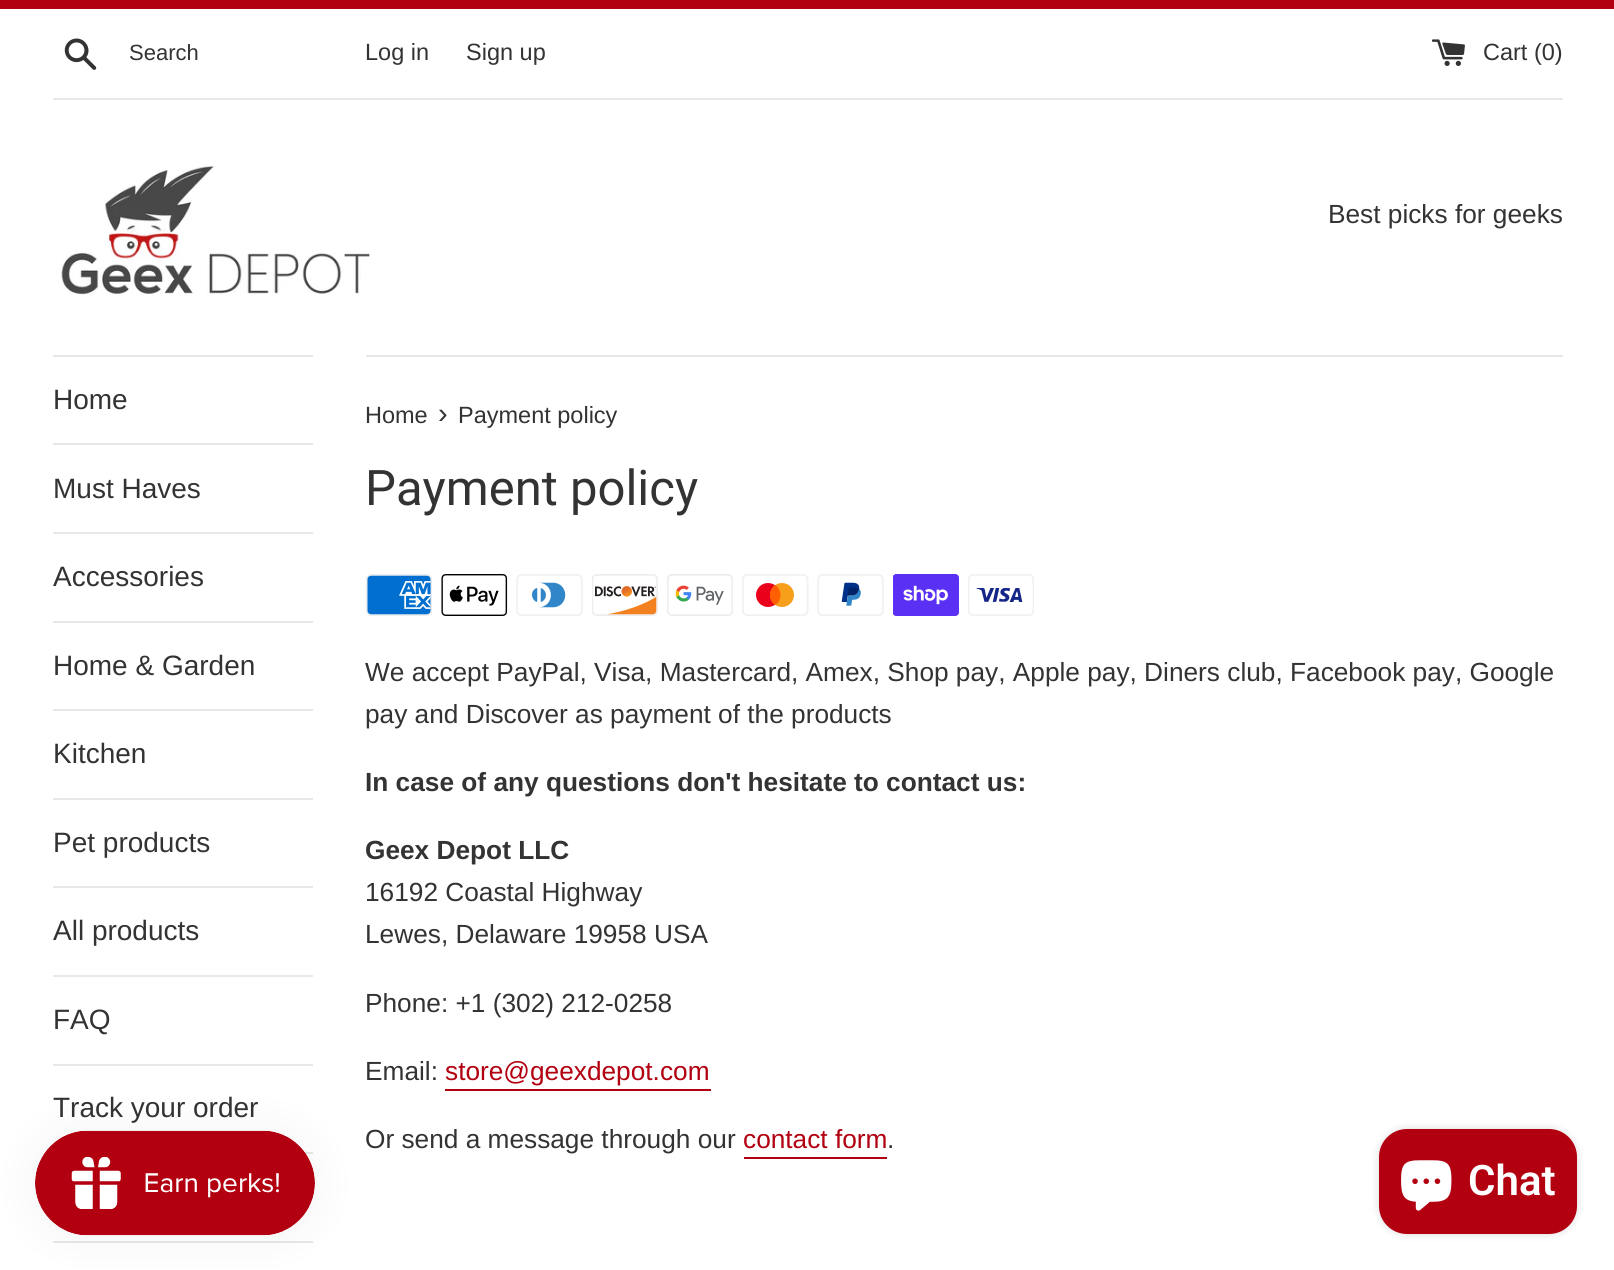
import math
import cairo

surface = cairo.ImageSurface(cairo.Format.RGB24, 1614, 1270)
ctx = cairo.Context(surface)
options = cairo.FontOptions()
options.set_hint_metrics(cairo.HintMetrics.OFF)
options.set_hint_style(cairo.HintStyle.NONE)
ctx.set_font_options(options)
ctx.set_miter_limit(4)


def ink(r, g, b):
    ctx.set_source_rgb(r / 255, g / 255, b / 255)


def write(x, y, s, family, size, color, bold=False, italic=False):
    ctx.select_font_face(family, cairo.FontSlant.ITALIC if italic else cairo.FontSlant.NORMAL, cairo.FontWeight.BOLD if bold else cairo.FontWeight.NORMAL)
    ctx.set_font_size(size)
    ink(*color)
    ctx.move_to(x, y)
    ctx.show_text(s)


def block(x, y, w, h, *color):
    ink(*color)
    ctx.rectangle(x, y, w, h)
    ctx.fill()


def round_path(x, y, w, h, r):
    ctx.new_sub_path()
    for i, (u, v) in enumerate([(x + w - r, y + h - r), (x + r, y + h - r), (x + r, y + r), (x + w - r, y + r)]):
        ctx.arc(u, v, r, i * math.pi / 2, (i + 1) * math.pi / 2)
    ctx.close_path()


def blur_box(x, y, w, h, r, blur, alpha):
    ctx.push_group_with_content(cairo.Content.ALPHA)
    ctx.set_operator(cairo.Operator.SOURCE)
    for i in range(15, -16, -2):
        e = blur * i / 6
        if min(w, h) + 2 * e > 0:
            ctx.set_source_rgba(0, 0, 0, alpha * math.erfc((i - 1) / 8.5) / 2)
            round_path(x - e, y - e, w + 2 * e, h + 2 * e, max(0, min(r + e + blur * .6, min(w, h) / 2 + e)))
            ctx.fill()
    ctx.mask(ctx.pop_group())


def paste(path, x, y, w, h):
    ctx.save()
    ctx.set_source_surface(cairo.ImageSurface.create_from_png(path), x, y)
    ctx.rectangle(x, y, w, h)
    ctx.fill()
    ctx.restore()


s1 = dict(family="Liberation Sans", size=22, color=(51, 51, 51))
s2 = dict(family="Liberation Sans", size=23.5, color=(51, 51, 51))
s3 = dict(family="Liberation Sans", size=26.25, color=(51, 51, 51))
s4 = dict(family="Liberation Sans", size=28, color=(51, 51, 51))
s5 = dict(family="Liberation Sans", size=29, color=(51, 51, 51))
s6 = dict(family="Roboto", size=49, color=(51, 51, 51))
s7 = dict(family="Liberation Sans", size=26.25, color=(51, 51, 51), bold=True)
s8 = dict(family="Liberation Sans", size=26.25, color=(178, 0, 17))
s9 = dict(family="Roboto SemiBold", size=42, color=(255, 255, 255))

ink(255, 255, 255)
ctx.paint()
block(0, 0, 1614, 9, 178, 0, 17)
paste("pic1.png", 64, 38, 33, 32)
write(129, 60, "Search", **s1)
write(365, 60, "Log in", **s2)
write(466, 60, "Sign up", **s2)
paste("pic2.png", 1432, 39, 33, 27)
write(1483, 60, "Cart (0)", **s2)
block(53, 98, 1510, 2, 232, 232, 232)
paste("pic3.png", 60, 165, 310, 130)
write(1328, 223, "Best picks for geeks", **s3)
block(53, 355, 260, 2, 232, 232, 232)
block(53, 443, 260, 2, 232, 232, 232)
write(53, 409, "Home", **s4)
block(53, 532, 260, 2, 232, 232, 232)
write(53, 498, "Must Haves", **s4)
block(53, 621, 260, 2, 232, 232, 232)
write(53, 586, "Accessories", **s4)
block(53, 709, 260, 2, 232, 232, 232)
write(53, 675, "Home & Garden", **s4)
block(53, 798, 260, 2, 232, 232, 232)
write(53, 763, "Kitchen", **s4)
block(53, 886, 260, 2, 232, 232, 232)
write(53, 852, "Pet products", **s4)
block(53, 975, 260, 2, 232, 232, 232)
write(53, 940, "All products", **s4)
block(53, 1064, 260, 2, 232, 232, 232)
write(53, 1029, "FAQ", **s4)
block(304, 1152, 9, 2, 232, 232, 232)
write(53, 1117, "Track your order", **s4)
block(53, 1241, 260, 2, 232, 232, 232)
block(366, 355, 1197, 2, 232, 232, 232)
write(365, 423, "Home", **s2)
write(438, 423, "›", **s5)
write(458, 423, "Payment policy", **s2)
write(365, 505, "Payment policy", **s6)
paste("pic4.png", 366, 574, 66, 42)
paste("pic5.png", 441, 574, 67, 42)
paste("pic6.png", 516, 574, 67, 42)
paste("pic7.png", 592, 574, 66, 42)
paste("pic8.png", 667, 574, 66, 42)
paste("pic9.png", 742, 574, 67, 42)
paste("pic10.png", 817, 574, 67, 42)
paste("pic11.png", 893, 574, 66, 42)
paste("pic12.png", 968, 574, 66, 42)
write(365, 681, "We accept PayPal, Visa, Mastercard, Amex, Shop pay, Apple pay, Diners club, Facebook pay, Google", **s3)
write(365, 723, "pay and Discover as payment of the products", **s3)
write(365, 791, "In case of any questions don't hesitate to contact us:", **s7)
write(365, 859, "Geex Depot LLC", **s7)
write(365, 901, "16192 Coastal Highway", **s3)
write(365, 943, "Lewes, Delaware 19958 USA", **s3)
write(365, 1012, "Phone: +1 (302) 212-0258", **s3)
write(365, 1080, "Email:", **s3)
write(445, 1080, "store@geexdepot.com", **s8)
block(445, 1089, 266, 2, 178, 0, 17)
write(365, 1148, "Or send a message through our", **s3)
write(743, 1148, "contact form", **s8)
block(744, 1157, 143, 2, 178, 0, 17)
write(887, 1148, ".", **s3)
ink(0, 0, 0)
blur_box(35, 1131, 280, 105, 52.5, 22, 0.05)
paste("pic13.png", 35, 1130, 280, 106)
blur_box(1379, 1129, 198, 105, 28, 4.5, 0.15)
ink(178, 0, 17)
round_path(1379, 1129, 198, 105, 28)
ctx.fill()
paste("pic14.png", 1401, 1160, 51, 51)
write(1468, 1195, "Chat", **s9)
surface.write_to_png("screenshot.png")
